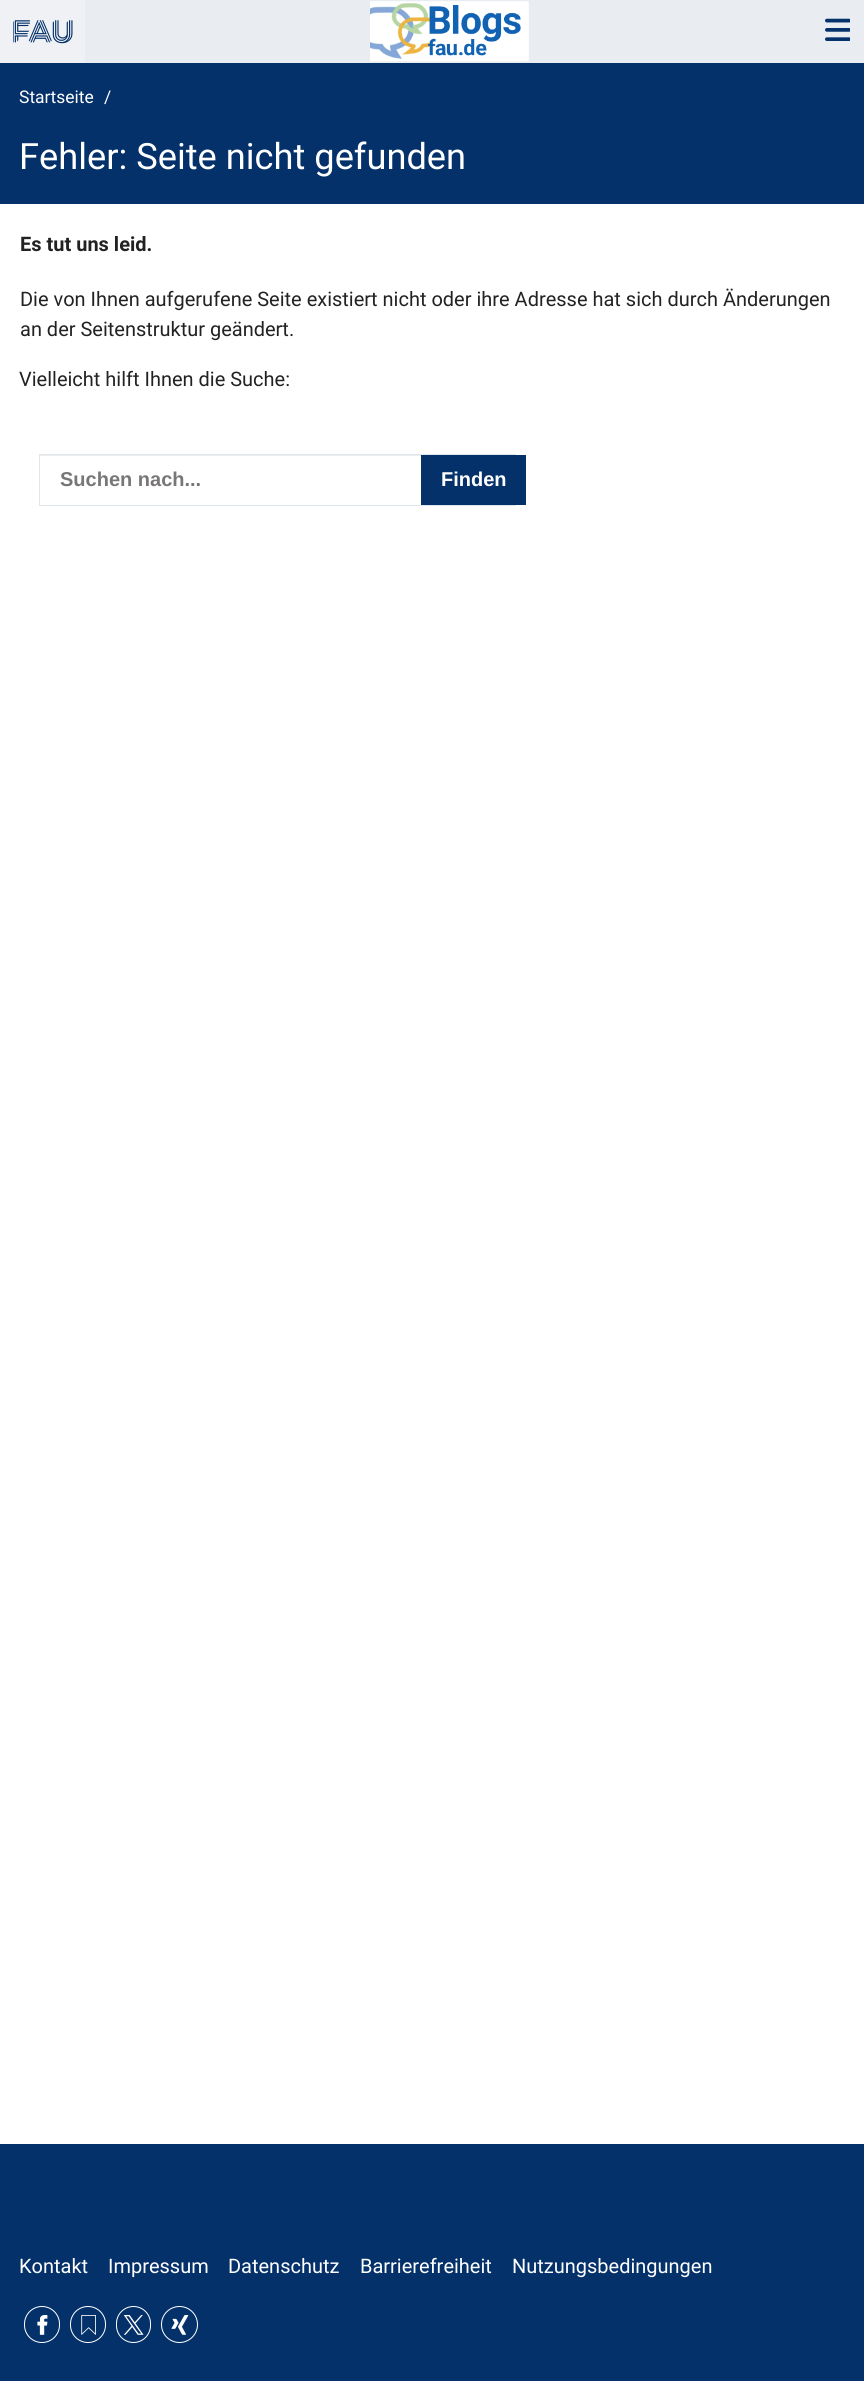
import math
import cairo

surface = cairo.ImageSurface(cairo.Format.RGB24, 864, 2381)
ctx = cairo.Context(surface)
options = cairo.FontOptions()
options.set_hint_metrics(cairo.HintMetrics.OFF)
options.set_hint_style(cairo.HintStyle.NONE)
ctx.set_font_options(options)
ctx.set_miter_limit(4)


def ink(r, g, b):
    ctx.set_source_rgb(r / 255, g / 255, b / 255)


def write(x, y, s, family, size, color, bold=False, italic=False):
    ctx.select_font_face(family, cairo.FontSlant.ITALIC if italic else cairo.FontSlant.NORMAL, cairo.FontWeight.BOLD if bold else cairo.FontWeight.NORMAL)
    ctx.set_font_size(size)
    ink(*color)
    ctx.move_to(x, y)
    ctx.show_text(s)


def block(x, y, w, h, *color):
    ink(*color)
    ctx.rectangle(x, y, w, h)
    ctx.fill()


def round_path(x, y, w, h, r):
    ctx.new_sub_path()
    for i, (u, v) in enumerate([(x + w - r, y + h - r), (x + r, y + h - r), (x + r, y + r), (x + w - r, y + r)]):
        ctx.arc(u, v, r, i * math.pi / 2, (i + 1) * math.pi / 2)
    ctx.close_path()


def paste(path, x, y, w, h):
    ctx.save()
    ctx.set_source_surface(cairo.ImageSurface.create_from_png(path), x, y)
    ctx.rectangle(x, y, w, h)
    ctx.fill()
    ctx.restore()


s1 = dict(family="Roboto", size=17.5, color=(255, 255, 255))
s2 = dict(family="Roboto", size=36.25, color=(255, 255, 255))
s3 = dict(family="Roboto", size=20, color=(34, 34, 34), bold=True)
s4 = dict(family="Roboto", size=20, color=(34, 34, 34))
s5 = dict(family="Liberation Sans", size=20, color=(121, 118, 118), bold=True)
s6 = dict(family="Liberation Sans", size=20, color=(255, 255, 255), bold=True)
s7 = dict(family="Roboto", size=20, color=(255, 255, 255))

ink(255, 255, 255)
ctx.paint()
block(85, 0, 779, 63, 233, 237, 242)
block(0, 0, 85, 63, 239, 241, 244)
paste("pic1.png", 13, 20, 60, 24)
paste("pic2.png", 370, 1, 159, 61)
paste("pic3.png", 825, 18, 25, 23)
block(0, 63, 864, 141, 4, 49, 106)
write(19, 103, "Startseite", **s1)
write(104, 103, "/", **s1)
write(19, 169, "Fehler: Seite nicht gefunden", **s2)
write(20, 251, "Es tut uns leid.", **s3)
write(20, 306, "Die von Ihnen aufgerufene Seite existiert nicht oder ihre Adresse hat sich durch Änderungen", **s4)
write(20, 336, "an der Seitenstruktur geändert.", **s4)
write(19, 386, "Vielleicht hilft Ihnen die Suche:", **s4)
block(40, 455, 381, 1, 236, 236, 236)
ctx.rectangle(39.5, 454.5, 476, 51)
ink(223, 230, 236)
ctx.set_line_width(1)
ctx.stroke()
write(60, 486, "Suchen nach...", **s5)
block(421, 455, 105, 50, 4, 49, 106)
write(441, 486, "Finden", **s6)
block(0, 2144, 864, 237, 4, 49, 106)
write(19, 2273, "Kontakt", **s7)
write(108, 2273, "Impressum", **s7)
write(228, 2273, "Datenschutz", **s7)
write(360, 2273, "Barrierefreiheit", **s7)
write(512, 2273, "Nutzungsbedingungen", **s7)
round_path(24.5, 2306.5, 35, 36, 17.5)
ctx.stroke()
paste("pic4.png", 37, 2315, 11, 20)
round_path(70.5, 2306.5, 35, 36, 17.5)
ctx.stroke()
paste("pic5.png", 81, 2315, 15, 20)
round_path(116.5, 2306.5, 34, 36, 17)
ctx.stroke()
paste("pic6.png", 124, 2315, 20, 20)
ctx.arc(179.5, 2324.5, 18, 0, 2 * math.pi)
ctx.stroke()
paste("pic7.png", 171, 2315, 18, 20)
surface.write_to_png("screenshot.png")
